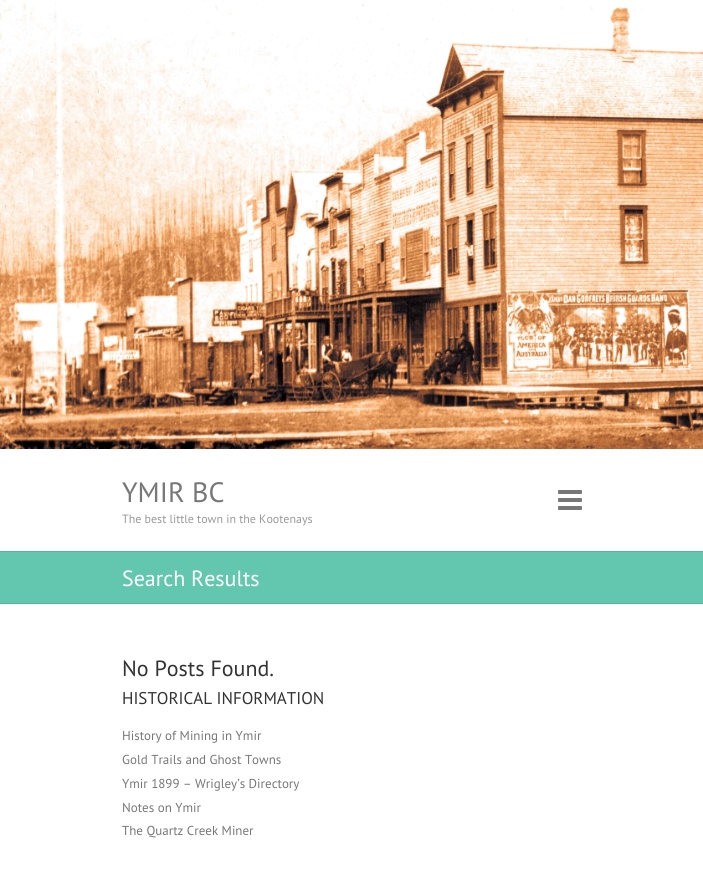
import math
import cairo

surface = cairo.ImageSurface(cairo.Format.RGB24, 703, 889)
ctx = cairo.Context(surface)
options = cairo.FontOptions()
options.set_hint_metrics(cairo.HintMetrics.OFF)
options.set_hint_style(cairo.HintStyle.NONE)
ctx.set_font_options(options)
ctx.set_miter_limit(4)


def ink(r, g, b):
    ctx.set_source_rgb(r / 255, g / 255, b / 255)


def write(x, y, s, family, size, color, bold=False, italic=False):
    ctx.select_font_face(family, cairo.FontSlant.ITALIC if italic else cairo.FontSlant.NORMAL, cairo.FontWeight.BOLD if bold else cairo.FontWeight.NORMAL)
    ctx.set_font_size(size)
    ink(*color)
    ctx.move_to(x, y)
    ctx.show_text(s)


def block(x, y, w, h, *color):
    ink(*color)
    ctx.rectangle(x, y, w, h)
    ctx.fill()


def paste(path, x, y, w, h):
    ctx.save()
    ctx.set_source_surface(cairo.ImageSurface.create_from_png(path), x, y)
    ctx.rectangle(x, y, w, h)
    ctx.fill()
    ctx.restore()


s1 = dict(family="PT Sans", size=28, color=(119, 119, 119))
s2 = dict(family="PT Sans", size=12, color=(153, 153, 153))
s3 = dict(family="PT Sans", size=22, color=(255, 255, 255))
s4 = dict(family="PT Sans", size=22, color=(51, 51, 51))
s5 = dict(family="PT Sans", size=17, color=(51, 51, 51))
s6 = dict(family="PT Sans", size=13, color=(119, 119, 119))

ink(255, 255, 255)
ctx.paint()
paste("pic1.png", 0, 0, 703, 449)
write(122, 502, "YMIR BC", **s1)
write(122, 523, "The best little town in the Kootenays", **s2)
paste("pic2.png", 558, 490, 24, 20)
block(0, 552, 703, 51, 99, 198, 174)
block(0, 551, 703, 1, 89, 178, 157)
block(0, 603, 703, 1, 89, 178, 157)
write(122, 586, "Search Results", **s3)
write(122, 676, "No Posts Found.", **s4)
write(122, 704, "HISTORICAL INFORMATION", **s5)
write(122, 740, "History of Mining in Ymir", **s6)
write(122, 764, "Gold Trails and Ghost Towns", **s6)
write(122, 788, "Ymir 1899 – Wrigley’s Directory", **s6)
write(122, 812, "Notes on Ymir", **s6)
write(122, 835, "The Quartz Creek Miner", **s6)
surface.write_to_png("screenshot.png")
